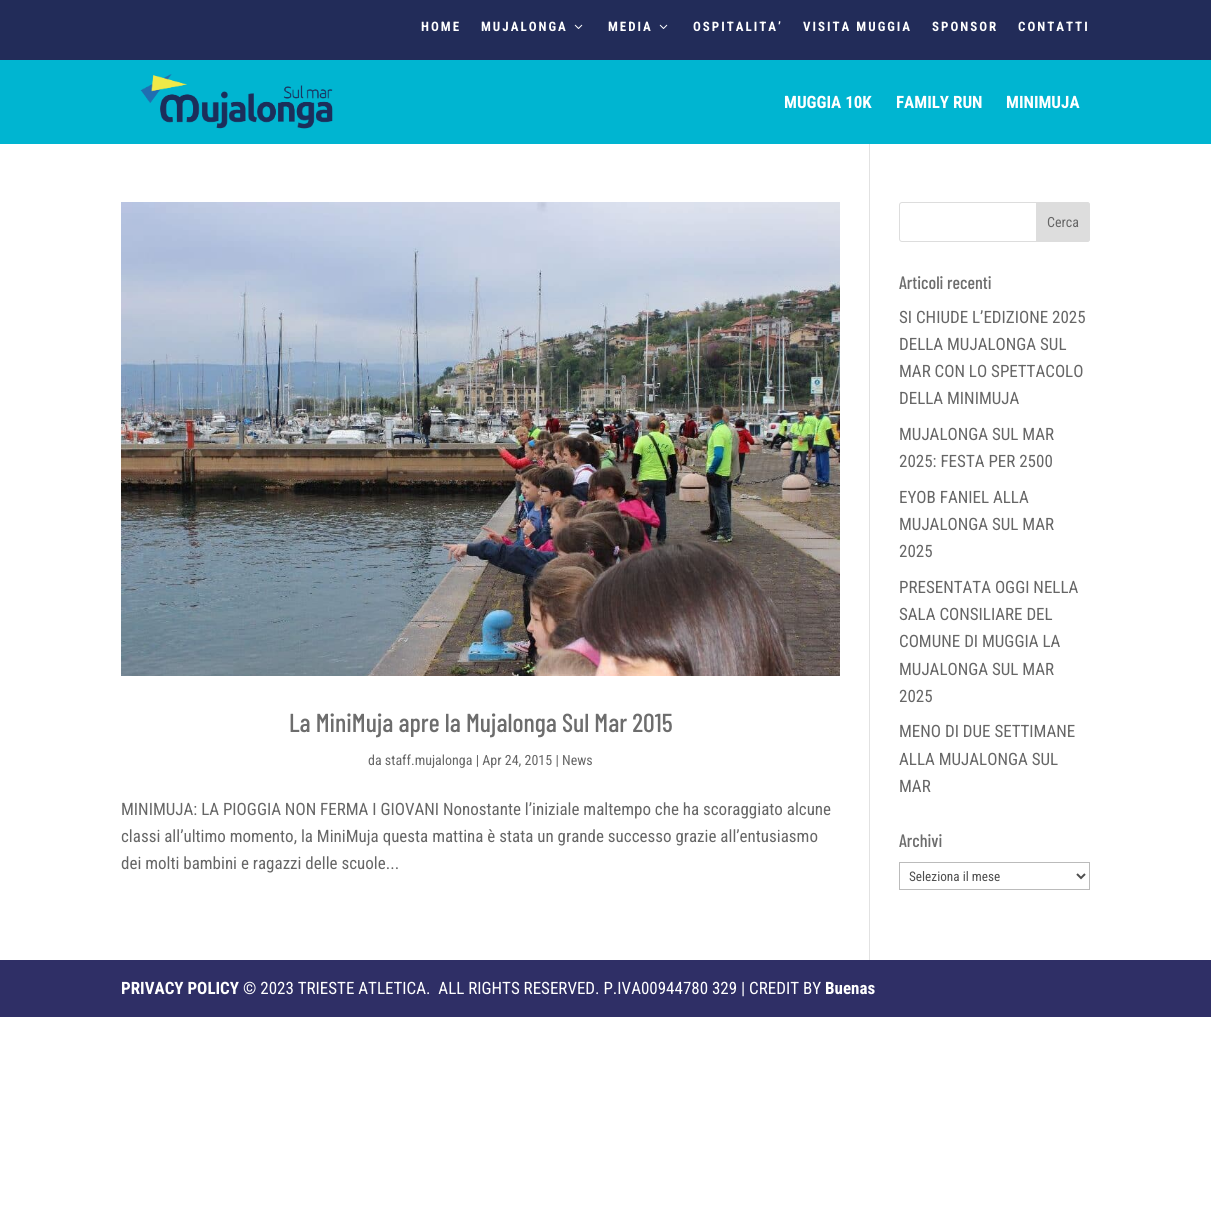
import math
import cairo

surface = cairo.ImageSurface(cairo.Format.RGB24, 1211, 1230)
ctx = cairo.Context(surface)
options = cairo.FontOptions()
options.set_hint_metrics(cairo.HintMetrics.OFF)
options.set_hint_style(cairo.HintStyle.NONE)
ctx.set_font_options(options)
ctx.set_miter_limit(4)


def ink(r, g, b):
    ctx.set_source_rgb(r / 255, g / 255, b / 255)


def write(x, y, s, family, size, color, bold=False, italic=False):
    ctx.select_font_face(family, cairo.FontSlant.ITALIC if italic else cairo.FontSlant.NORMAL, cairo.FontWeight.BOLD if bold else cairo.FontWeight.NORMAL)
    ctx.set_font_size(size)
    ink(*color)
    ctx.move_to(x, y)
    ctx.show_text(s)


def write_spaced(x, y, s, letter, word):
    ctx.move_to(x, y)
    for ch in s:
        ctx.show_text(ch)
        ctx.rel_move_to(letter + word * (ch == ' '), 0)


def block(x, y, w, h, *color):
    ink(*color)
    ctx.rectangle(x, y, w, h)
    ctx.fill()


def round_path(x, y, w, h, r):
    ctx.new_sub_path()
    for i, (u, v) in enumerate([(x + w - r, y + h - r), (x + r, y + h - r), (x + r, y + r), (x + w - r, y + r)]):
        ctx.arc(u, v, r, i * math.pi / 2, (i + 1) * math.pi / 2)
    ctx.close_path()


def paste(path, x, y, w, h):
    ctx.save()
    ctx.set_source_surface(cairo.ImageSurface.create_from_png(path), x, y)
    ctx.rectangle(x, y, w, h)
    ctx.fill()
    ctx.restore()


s1 = dict(family="Roboto Condensed", size=17, color=(255, 255, 255), bold=True)
s2 = dict(family="Barlow Condensed Medium", size=26, color=(109, 109, 109))
s3 = dict(family="Roboto Condensed", size=14, color=(102, 102, 102))
s4 = dict(family="Roboto Condensed", size=17, color=(102, 102, 102))
s5 = dict(family="Barlow Condensed Medium", size=18, color=(109, 109, 109))
s6 = dict(family="Roboto Condensed", size=13.25, color=(78, 78, 78))
s7 = dict(family="Roboto Condensed", size=17, color=(255, 255, 255))

ink(255, 255, 255)
ctx.paint()
block(0, 0, 1211, 60, 34, 44, 89)
ctx.select_font_face("Roboto Condensed", cairo.FontSlant.NORMAL, cairo.FontWeight.BOLD)
ctx.set_font_size(13)
ink(255, 255, 255)
write_spaced(421, 31, "HOME", 2, 0)
write_spaced(481, 31, "MUJALONGA", 2, 0)
paste("pic1.png", 574, 24, 9, 5)
write_spaced(608, 31, "MEDIA", 2, 0)
paste("pic1.png", 659, 24, 9, 5)
write_spaced(693, 31, "OSPITALITA’", 2, 0)
write_spaced(803, 31, "VISITA MUGGIA", 2, 0)
write_spaced(932, 31, "SPONSOR", 2, 0)
write_spaced(1018, 31, "CONTATTI", 2, 0)
block(0, 60, 1211, 84, 0, 181, 209)
paste("pic2.png", 140, 74, 193, 55)
write(784, 108, "MUGGIA 10K", **s1)
write(896, 108, "FAMILY RUN", **s1)
write(1006, 108, "MINIMUJA", **s1)
block(869, 144, 1, 816, 226, 226, 226)
paste("pic3.png", 121, 202, 719, 474)
write(289, 732, "La MiniMuja apre la Mujalonga Sul Mar 2015", **s2)
write(368, 765, "da staff.mujalonga | Apr 24, 2015 | News", **s3)
write(121, 815, "MINIMUJA: LA PIOGGIA NON FERMA I GIOVANI Nonostante l’iniziale maltempo che ha scoraggiato alcune", **s4)
write(121, 842, "classi all’ultimo momento, la MiniMuja questa mattina è stata un grande successo grazie all’entusiasmo", **s4)
write(121, 869, "dei molti bambini e ragazzi delle scuole...", **s4)
round_path(899.5, 202.5, 190, 39, 2.5)
ink(221, 221, 221)
ctx.set_line_width(1)
ctx.stroke()
ctx.new_path()
ctx.move_to(1036.5, 202.5)
ctx.line_to(1087, 202.5)
ctx.curve_to(1088.5, 202.5, 1089.5, 203.5, 1089.5, 205)
ctx.line_to(1089.5, 239)
ctx.curve_to(1089.5, 240.5, 1088.5, 241.5, 1087, 241.5)
ctx.line_to(1036.5, 241.5)
ctx.close_path()
ctx.fill_preserve()
ctx.stroke()
write(1047, 227, "Cerca", **s3)
write(899, 289, "Articoli recenti", **s5)
write(899, 323, "SI CHIUDE L’EDIZIONE 2025", **s4)
write(899, 350, "DELLA MUJALONGA SUL", **s4)
write(899, 377, "MAR CON LO SPETTACOLO", **s4)
write(899, 404, "DELLA MINIMUJA", **s4)
write(899, 440, "MUJALONGA SUL MAR", **s4)
write(899, 467, "2025: FESTA PER 2500", **s4)
write(899, 503, "EYOB FANIEL ALLA", **s4)
write(899, 530, "MUJALONGA SUL MAR", **s4)
write(899, 557, "2025", **s4)
write(899, 593, "PRESENTATA OGGI NELLA", **s4)
write(899, 620, "SALA CONSILIARE DEL", **s4)
write(899, 647, "COMUNE DI MUGGIA LA", **s4)
write(899, 675, "MUJALONGA SUL MAR", **s4)
write(899, 702, "2025", **s4)
write(899, 737, "MENO DI DUE SETTIMANE", **s4)
write(899, 765, "ALLA MUJALONGA SUL", **s4)
write(899, 792, "MAR", **s4)
write(899, 847, "Archivi", **s5)
ctx.rectangle(899.5, 862.5, 190, 27)
ink(187, 187, 187)
ctx.stroke()
ctx.new_path()
ctx.move_to(1077, 874)
ctx.line_to(1081, 878)
ctx.line_to(1085, 874)
ink(78, 78, 78)
ctx.set_line_width(2)
ctx.stroke()
write(909, 881, "Seleziona il mese", **s6)
block(0, 960, 1211, 57, 47, 47, 102)
write(121, 994, "PRIVACY POLICY", **s1)
write(243, 994, "© 2023 TRIESTE ATLETICA.  ALL RIGHTS RESERVED. P.IVA00944780 329 | CREDIT BY", **s7)
write(825, 994, "Buenas", **s1)
surface.write_to_png("screenshot.png")
